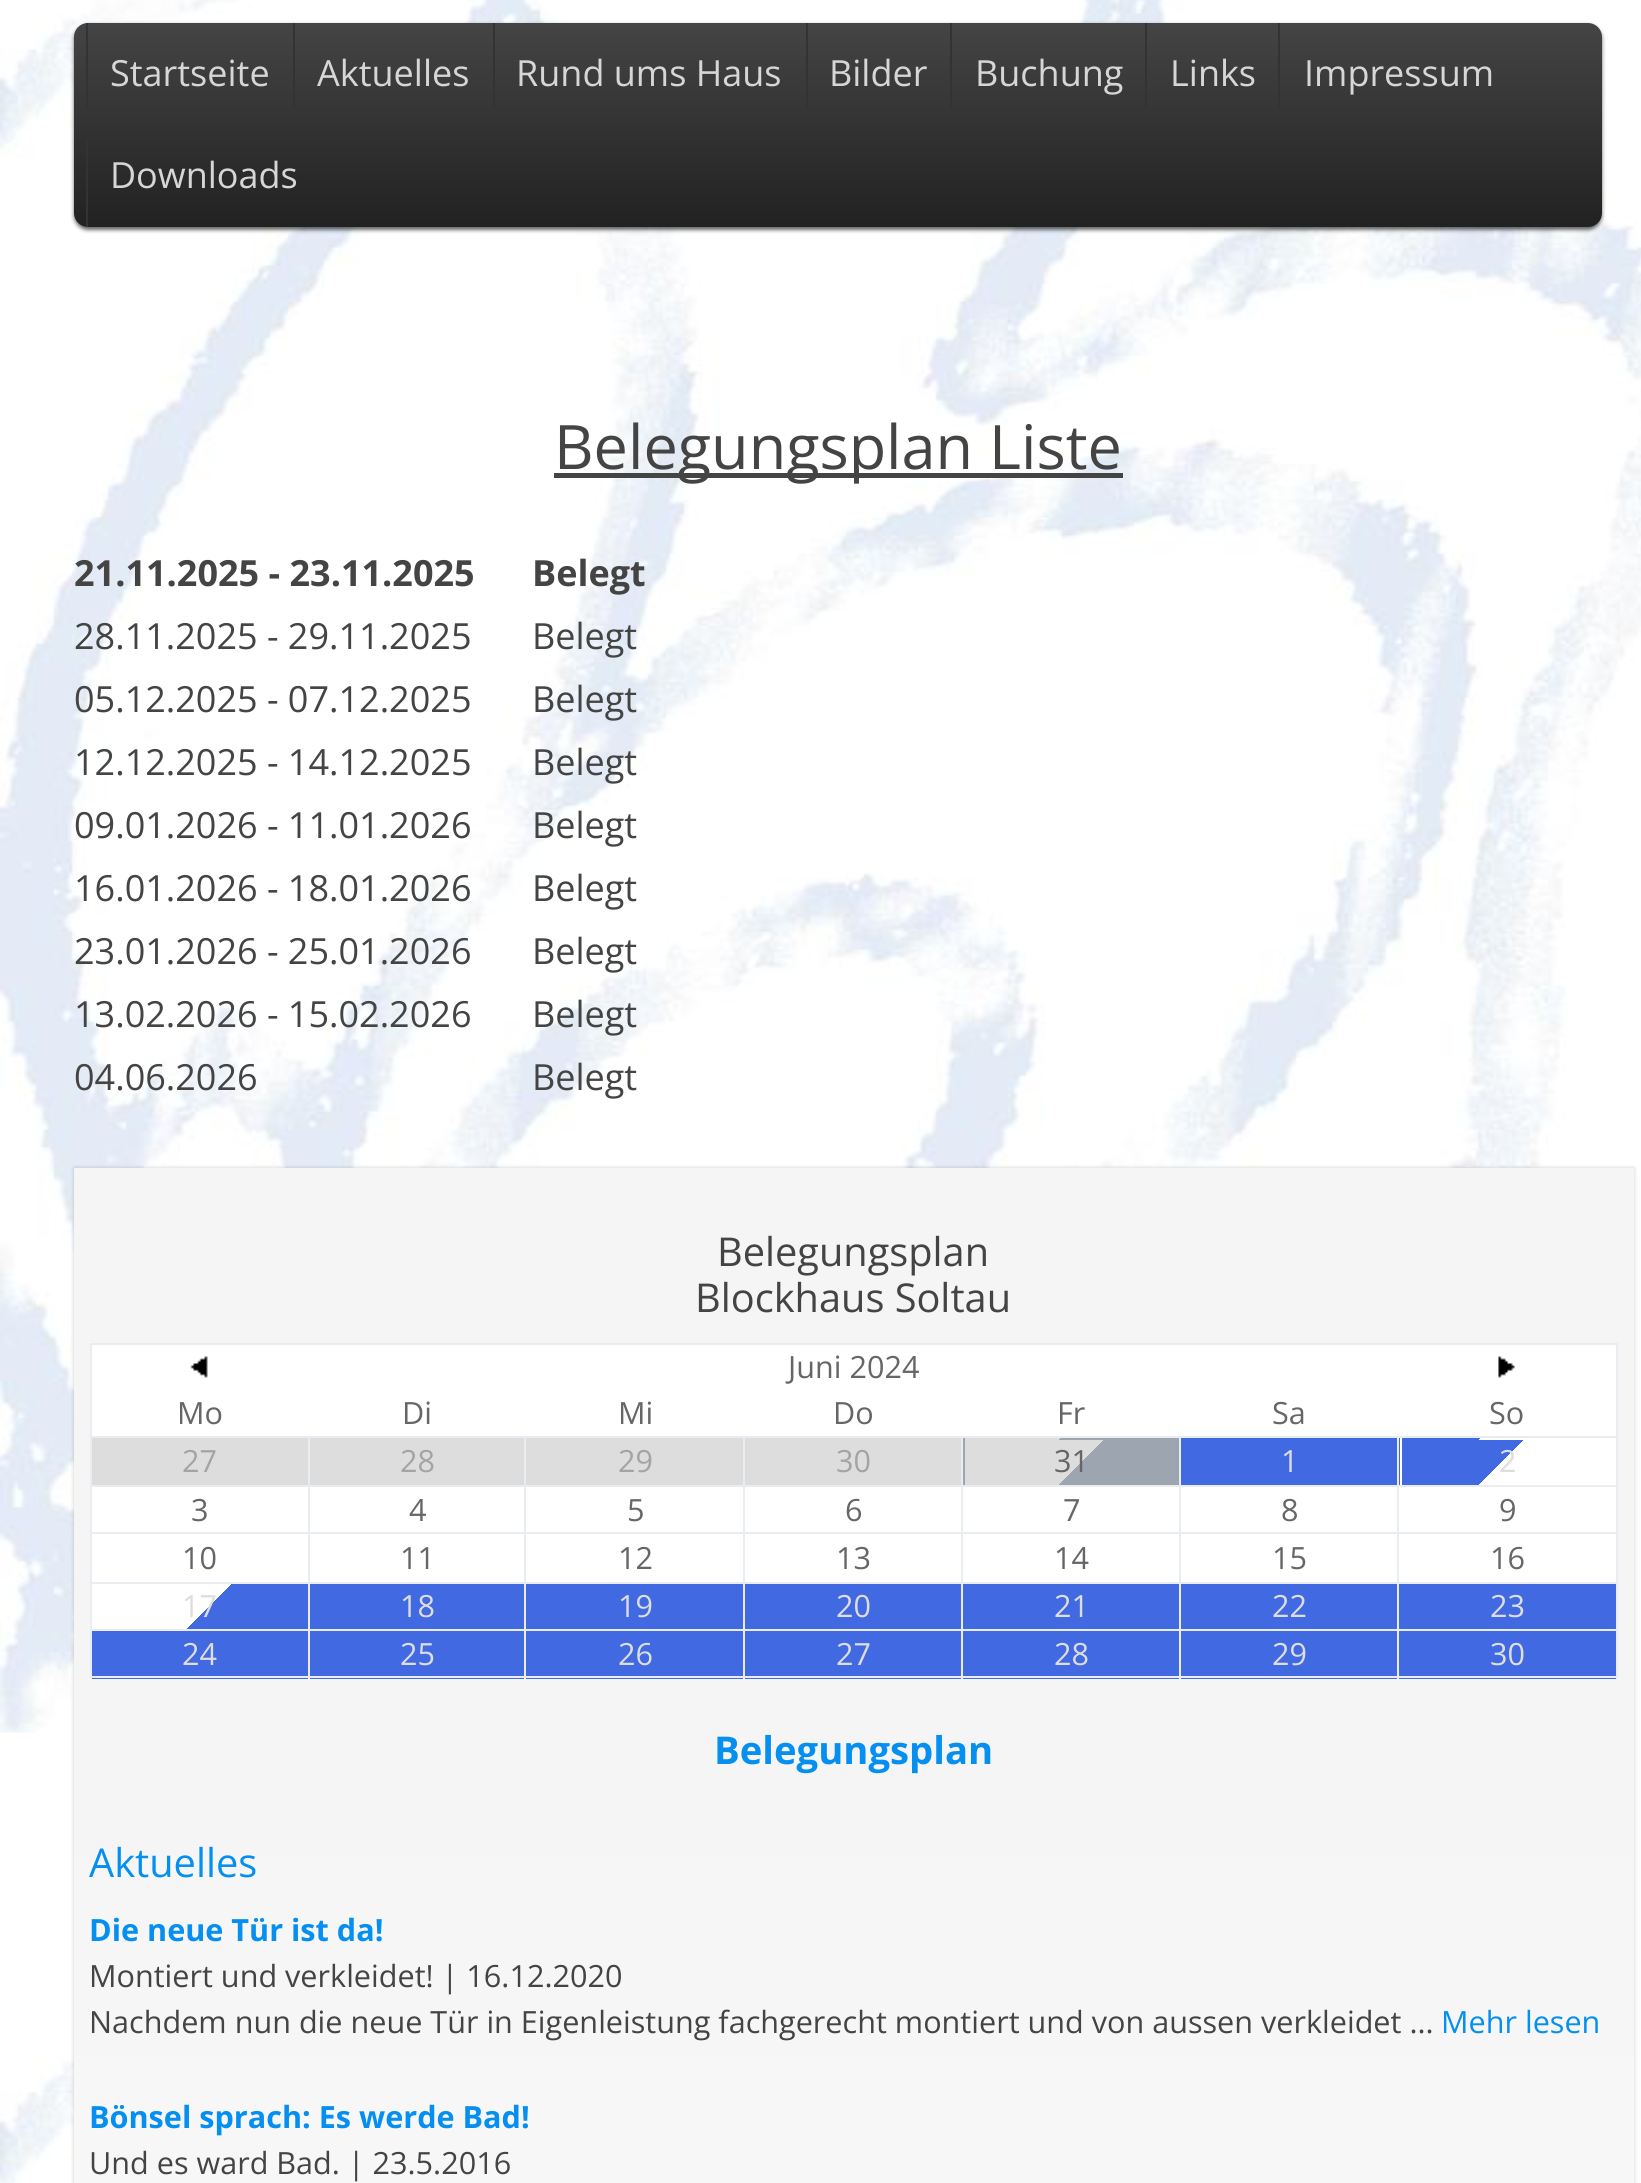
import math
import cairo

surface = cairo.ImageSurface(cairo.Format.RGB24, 1641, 2183)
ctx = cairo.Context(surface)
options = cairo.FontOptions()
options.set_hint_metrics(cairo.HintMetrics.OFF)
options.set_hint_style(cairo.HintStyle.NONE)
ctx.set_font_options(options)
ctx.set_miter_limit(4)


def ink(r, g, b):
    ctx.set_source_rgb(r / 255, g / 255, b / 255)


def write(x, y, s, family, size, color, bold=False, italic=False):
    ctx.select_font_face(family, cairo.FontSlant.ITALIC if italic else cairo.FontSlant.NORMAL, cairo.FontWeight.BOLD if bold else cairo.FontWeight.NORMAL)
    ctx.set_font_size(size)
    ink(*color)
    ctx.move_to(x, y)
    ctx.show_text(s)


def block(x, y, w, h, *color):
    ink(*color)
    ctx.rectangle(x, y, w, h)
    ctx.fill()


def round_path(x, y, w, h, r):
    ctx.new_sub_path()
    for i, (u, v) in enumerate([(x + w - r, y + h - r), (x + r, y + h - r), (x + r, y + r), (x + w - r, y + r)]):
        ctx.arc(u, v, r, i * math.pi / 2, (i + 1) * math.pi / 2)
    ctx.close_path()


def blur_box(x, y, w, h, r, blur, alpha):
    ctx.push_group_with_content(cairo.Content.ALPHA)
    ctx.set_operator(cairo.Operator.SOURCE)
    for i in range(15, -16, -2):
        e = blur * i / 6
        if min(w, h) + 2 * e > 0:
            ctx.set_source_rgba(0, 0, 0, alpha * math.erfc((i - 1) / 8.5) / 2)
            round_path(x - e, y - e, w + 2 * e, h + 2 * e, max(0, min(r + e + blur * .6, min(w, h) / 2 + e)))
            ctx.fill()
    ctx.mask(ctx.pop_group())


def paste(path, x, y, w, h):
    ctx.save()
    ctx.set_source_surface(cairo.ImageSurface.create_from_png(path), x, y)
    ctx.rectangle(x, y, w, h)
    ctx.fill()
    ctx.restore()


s1 = dict(family="Open Sans", size=36, color=(214, 214, 214))
s2 = dict(family="Open Sans", size=61.25, color=(68, 68, 68))
s3 = dict(family="Open Sans", size=36, color=(68, 68, 68), bold=True)
s4 = dict(family="Open Sans", size=36, color=(68, 68, 68))
s5 = dict(family="Open Sans", size=39.75, color=(68, 68, 68))
s6 = dict(family="Open Sans", size=30.6, color=(102, 102, 102))
s7 = dict(family="Open Sans", size=30.6, color=(164, 164, 164))
s8 = dict(family="Open Sans", size=30.6, color=(221, 221, 221))
s9 = dict(family="Open Sans", size=38.25, color=(5, 143, 240), bold=True)
s10 = dict(family="Open Sans", size=39.75, color=(5, 143, 240))
s11 = dict(family="Open Sans", size=30.6, color=(5, 143, 240), bold=True)
s12 = dict(family="Open Sans", size=30.6, color=(68, 68, 68))
s13 = dict(family="Open Sans", size=30.6, color=(5, 143, 240))

ink(255, 255, 255)
ctx.paint()
paste("pic1.png", 0, 0, 1641, 2183)
ink(0, 0, 0)
blur_box(74, 25, 1528, 205, 14, 2, 0.6)
gradient = cairo.LinearGradient(838, 22, 838, 227)
gradient.add_color_stop_rgba(0, 0.267, 0.267, 0.267, 1)
gradient.add_color_stop_rgba(1, 0.133, 0.133, 0.133, 1)
ctx.set_source(gradient)
round_path(74, 23, 1528, 204, 14)
ctx.fill()
block(86, 23, 2, 86, 51, 51, 51)
write(110, 86, "Startseite", **s1)
block(293, 23, 2, 86, 51, 51, 51)
write(317, 86, "Aktuelles", **s1)
block(493, 23, 2, 86, 51, 51, 51)
write(516, 86, "Rund ums Haus", **s1)
block(806, 23, 2, 86, 51, 51, 51)
write(829, 86, "Bilder", **s1)
block(950, 23, 2, 86, 51, 51, 51)
write(975, 86, "Buchung", **s1)
block(1145, 23, 2, 86, 51, 51, 51)
write(1170, 86, "Links", **s1)
block(1278, 23, 2, 86, 51, 51, 51)
write(1304, 86, "Impressum", **s1)
block(86, 140, 2, 87, 51, 51, 51)
write(110, 188, "Downloads", **s1)
block(554, 473, 569, 5, 68, 68, 68)
write(554, 469, "Belegungsplan Liste", **s2)
write(74, 586, "21.11.2025 - 23.11.2025", **s3)
write(532, 586, "Belegt", **s3)
write(74, 649, "28.11.2025 - 29.11.2025", **s4)
write(532, 649, "Belegt", **s4)
write(74, 712, "05.12.2025 - 07.12.2025", **s4)
write(532, 712, "Belegt", **s4)
write(74, 775, "12.12.2025 - 14.12.2025", **s4)
write(532, 775, "Belegt", **s4)
write(74, 838, "09.01.2026 - 11.01.2026", **s4)
write(532, 838, "Belegt", **s4)
write(74, 901, "16.01.2026 - 18.01.2026", **s4)
write(532, 901, "Belegt", **s4)
write(74, 964, "23.01.2026 - 25.01.2026", **s4)
write(532, 964, "Belegt", **s4)
write(74, 1027, "13.02.2026 - 15.02.2026", **s4)
write(532, 1027, "Belegt", **s4)
write(74, 1090, "04.06.2026", **s4)
write(532, 1090, "Belegt", **s4)
ink(0, 0, 0)
blur_box(74, 1168, 1560, 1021, 0, 2, 0.2)
gradient = cairo.LinearGradient(74, 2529, 74, 1168)
gradient.add_color_stop_rgba(0.11, 0.973, 0.973, 0.973, 1)
gradient.add_color_stop_rgba(0.56, 0.961, 0.961, 0.961, 1)
ctx.set_source(gradient)
ctx.rectangle(74, 1168, 1560, 1015)
ctx.fill()
write(717, 1266, "Belegungsplan", **s5)
write(695, 1312, "Blockhaus Soltau", **s5)
block(90, 1343, 1528, 2, 233, 236, 240)
block(1616, 1343, 2, 336, 233, 236, 240)
block(92, 1631, 216, 48, 65, 105, 225)
block(310, 1631, 433, 48, 65, 105, 225)
block(745, 1631, 216, 48, 65, 105, 225)
block(963, 1631, 216, 48, 65, 105, 225)
block(1181, 1631, 435, 48, 65, 105, 225)
block(90, 1676, 1528, 2, 233, 236, 240)
block(90, 1343, 2, 336, 233, 236, 240)
block(92, 1345, 1524, 46, 255, 255, 255)
paste("pic2.png", 190, 1356, 18, 22)
write(788, 1378, "Juni 2024", **s6)
paste("pic3.png", 1498, 1356, 17, 22)
block(92, 1391, 1524, 45, 255, 255, 255)
write(177, 1424, "Mo", **s6)
write(402, 1424, "Di", **s6)
write(618, 1424, "Mi", **s6)
write(833, 1424, "Do", **s6)
write(1057, 1424, "Fr", **s6)
write(1272, 1424, "Sa", **s6)
write(1489, 1424, "So", **s6)
block(92, 1438, 216, 47, 221, 221, 221)
block(1397, 1436, 221, 2, 233, 236, 240)
block(1181, 1438, 219, 47, 65, 105, 225)
block(1397, 1485, 221, 2, 233, 236, 240)
block(1181, 1487, 435, 48, 255, 255, 255)
block(1397, 1532, 221, 2, 233, 236, 240)
block(1181, 1535, 435, 47, 255, 255, 255)
block(1397, 1582, 221, 2, 233, 236, 240)
block(1181, 1584, 435, 45, 65, 105, 225)
block(1397, 1629, 221, 2, 233, 236, 240)
block(1397, 1629, 2, 50, 233, 236, 240)
block(1179, 1629, 221, 2, 233, 236, 240)
block(1397, 1582, 2, 49, 233, 236, 240)
block(1179, 1582, 221, 2, 233, 236, 240)
block(1397, 1532, 2, 52, 233, 236, 240)
block(1179, 1532, 221, 2, 233, 236, 240)
block(1397, 1485, 2, 50, 233, 236, 240)
block(1179, 1485, 221, 2, 233, 236, 240)
block(1397, 1436, 2, 51, 233, 236, 240)
block(1179, 1436, 221, 2, 233, 236, 240)
gradient = cairo.LinearGradient(1139, 1483, 1008, 1352)
gradient.add_color_stop_rgba(0.47, 0.616, 0.651, 0.69, 1)
gradient.add_color_stop_rgba(0.47, 0.867, 0.867, 0.867, 1)
ctx.set_source(gradient)
ctx.rectangle(965, 1438, 216, 2)
ctx.fill()
block(963, 1487, 216, 95, 255, 255, 255)
block(1179, 1629, 2, 50, 233, 236, 240)
block(961, 1629, 220, 2, 233, 236, 240)
block(1179, 1582, 2, 49, 233, 236, 240)
block(961, 1582, 220, 2, 233, 236, 240)
block(1179, 1532, 2, 52, 233, 236, 240)
block(961, 1532, 220, 2, 233, 236, 240)
block(1179, 1485, 2, 50, 233, 236, 240)
block(961, 1485, 220, 2, 233, 236, 240)
block(1179, 1436, 2, 51, 233, 236, 240)
block(961, 1436, 220, 2, 233, 236, 240)
block(745, 1487, 216, 95, 255, 255, 255)
block(961, 1629, 2, 50, 233, 236, 240)
block(743, 1629, 220, 2, 233, 236, 240)
block(961, 1582, 2, 49, 233, 236, 240)
block(743, 1582, 220, 2, 233, 236, 240)
block(961, 1532, 2, 52, 233, 236, 240)
block(743, 1532, 220, 2, 233, 236, 240)
block(961, 1485, 2, 50, 233, 236, 240)
block(743, 1485, 220, 2, 233, 236, 240)
block(961, 1436, 2, 51, 233, 236, 240)
block(743, 1436, 220, 2, 233, 236, 240)
block(310, 1487, 433, 48, 255, 255, 255)
block(743, 1629, 2, 50, 233, 236, 240)
block(524, 1629, 221, 2, 233, 236, 240)
block(743, 1582, 2, 49, 233, 236, 240)
block(524, 1582, 221, 2, 233, 236, 240)
block(743, 1532, 2, 52, 233, 236, 240)
block(524, 1532, 221, 2, 233, 236, 240)
block(743, 1485, 2, 50, 233, 236, 240)
block(524, 1485, 221, 2, 233, 236, 240)
block(743, 1436, 2, 51, 233, 236, 240)
block(524, 1436, 221, 2, 233, 236, 240)
block(310, 1438, 433, 47, 221, 221, 221)
block(310, 1535, 433, 47, 255, 255, 255)
block(310, 1584, 433, 45, 65, 105, 225)
block(524, 1629, 2, 50, 233, 236, 240)
block(308, 1629, 219, 2, 233, 236, 240)
block(524, 1582, 2, 49, 233, 236, 240)
block(308, 1582, 219, 2, 233, 236, 240)
block(524, 1532, 2, 52, 233, 236, 240)
block(308, 1532, 219, 2, 233, 236, 240)
block(524, 1485, 2, 50, 233, 236, 240)
block(308, 1485, 219, 2, 233, 236, 240)
block(524, 1436, 2, 51, 233, 236, 240)
block(308, 1436, 219, 2, 233, 236, 240)
block(92, 1487, 216, 95, 255, 255, 255)
block(308, 1629, 2, 50, 233, 236, 240)
block(90, 1629, 221, 2, 233, 236, 240)
block(308, 1582, 2, 49, 233, 236, 240)
block(90, 1582, 221, 2, 233, 236, 240)
block(308, 1532, 2, 52, 233, 236, 240)
block(90, 1532, 221, 2, 233, 236, 240)
block(308, 1485, 2, 50, 233, 236, 240)
block(90, 1485, 221, 2, 233, 236, 240)
block(308, 1436, 2, 51, 233, 236, 240)
block(90, 1436, 221, 2, 233, 236, 240)
write(182, 1472, "27", **s7)
write(400, 1472, "28", **s7)
write(618, 1472, "29", **s7)
block(745, 1438, 216, 47, 221, 221, 221)
write(836, 1472, "30", **s7)
gradient = cairo.LinearGradient(923, 1483, 792, 1352)
gradient.add_color_stop_rgba(0.47, 0.616, 0.651, 0.69, 1)
gradient.add_color_stop_rgba(0.47, 0.867, 0.867, 0.867, 1)
ctx.set_source(gradient)
ctx.rectangle(963, 1438, 2, 2)
ctx.fill()
gradient = cairo.LinearGradient(923, 1528, 792, 1397)
gradient.add_color_stop_rgba(0.47, 0.616, 0.651, 0.69, 1)
gradient.add_color_stop_rgba(0.47, 0.867, 0.867, 0.867, 1)
ctx.set_source(gradient)
ctx.rectangle(963, 1440, 2, 45)
ctx.fill()
gradient = cairo.LinearGradient(1139, 1528, 1008, 1397)
gradient.add_color_stop_rgba(0.47, 0.616, 0.651, 0.69, 1)
gradient.add_color_stop_rgba(0.47, 0.867, 0.867, 0.867, 1)
ctx.set_source(gradient)
ctx.rectangle(965, 1440, 214, 45)
ctx.fill()
write(1054, 1472, "31", **s6)
write(1281, 1472, "1", **s8)
gradient = cairo.LinearGradient(1360, 1482, 1230, 1353)
gradient.add_color_stop_rgba(0.47, 1, 1, 1, 1)
gradient.add_color_stop_rgba(0.53, 1, 1, 1, 1)
gradient.add_color_stop_rgba(0.53, 0.255, 0.412, 0.882, 1)
ctx.set_source(gradient)
ctx.rectangle(1400, 1438, 2, 2)
ctx.fill()
gradient = cairo.LinearGradient(1573, 1482, 1444, 1353)
gradient.add_color_stop_rgba(0.47, 1, 1, 1, 1)
gradient.add_color_stop_rgba(0.53, 1, 1, 1, 1)
gradient.add_color_stop_rgba(0.53, 0.255, 0.412, 0.882, 1)
ctx.set_source(gradient)
ctx.rectangle(1402, 1438, 214, 2)
ctx.fill()
gradient = cairo.LinearGradient(1360, 1527, 1230, 1398)
gradient.add_color_stop_rgba(0.47, 1, 1, 1, 1)
gradient.add_color_stop_rgba(0.53, 1, 1, 1, 1)
gradient.add_color_stop_rgba(0.53, 0.255, 0.412, 0.882, 1)
ctx.set_source(gradient)
ctx.rectangle(1400, 1440, 2, 45)
ctx.fill()
gradient = cairo.LinearGradient(1573, 1527, 1444, 1398)
gradient.add_color_stop_rgba(0.47, 1, 1, 1, 1)
gradient.add_color_stop_rgba(0.53, 1, 1, 1, 1)
gradient.add_color_stop_rgba(0.53, 0.255, 0.412, 0.882, 1)
ctx.set_source(gradient)
ctx.rectangle(1402, 1440, 214, 45)
ctx.fill()
write(1499, 1472, "2", **s8)
write(191, 1521, "3", **s6)
write(409, 1521, "4", **s6)
write(627, 1521, "5", **s6)
write(845, 1521, "6", **s6)
write(1063, 1521, "7", **s6)
write(1281, 1521, "8", **s6)
write(1499, 1521, "9", **s6)
write(182, 1569, "10", **s6)
write(400, 1569, "11", **s6)
write(618, 1569, "12", **s6)
write(836, 1569, "13", **s6)
write(1054, 1569, "14", **s6)
write(1272, 1569, "15", **s6)
write(1490, 1569, "16", **s6)
gradient = cairo.LinearGradient(266, 1673, 134, 1542)
gradient.add_color_stop_rgba(0.47, 0.255, 0.412, 0.882, 1)
gradient.add_color_stop_rgba(0.47, 1, 1, 1, 1)
ctx.set_source(gradient)
ctx.rectangle(92, 1584, 216, 45)
ctx.fill()
write(182, 1617, "17", **s8)
write(400, 1617, "18", **s8)
write(618, 1617, "19", **s8)
block(745, 1584, 216, 45, 65, 105, 225)
write(836, 1617, "20", **s8)
block(963, 1584, 216, 45, 65, 105, 225)
write(1054, 1617, "21", **s8)
write(1272, 1617, "22", **s8)
write(1490, 1617, "23", **s8)
write(182, 1665, "24", **s8)
write(400, 1665, "25", **s8)
write(618, 1665, "26", **s8)
write(836, 1665, "27", **s8)
write(1054, 1665, "28", **s8)
write(1272, 1665, "29", **s8)
write(1490, 1665, "30", **s8)
write(714, 1764, "Belegungsplan", **s9)
write(89, 1877, "Aktuelles", **s10)
write(89, 1941, "Die neue Tür ist da!", **s11)
write(89, 1987, "Montiert und verkleidet! | 16.12.2020", **s12)
write(89, 2033, "Nachdem nun die neue Tür in Eigenleistung fachgerecht montiert und von aussen verkleidet ...", **s12)
write(1441, 2033, "Mehr lesen", **s13)
write(89, 2128, "Bönsel sprach: Es werde Bad!", **s11)
write(89, 2174, "Und es ward Bad. | 23.5.2016", **s12)
surface.write_to_png("screenshot.png")
